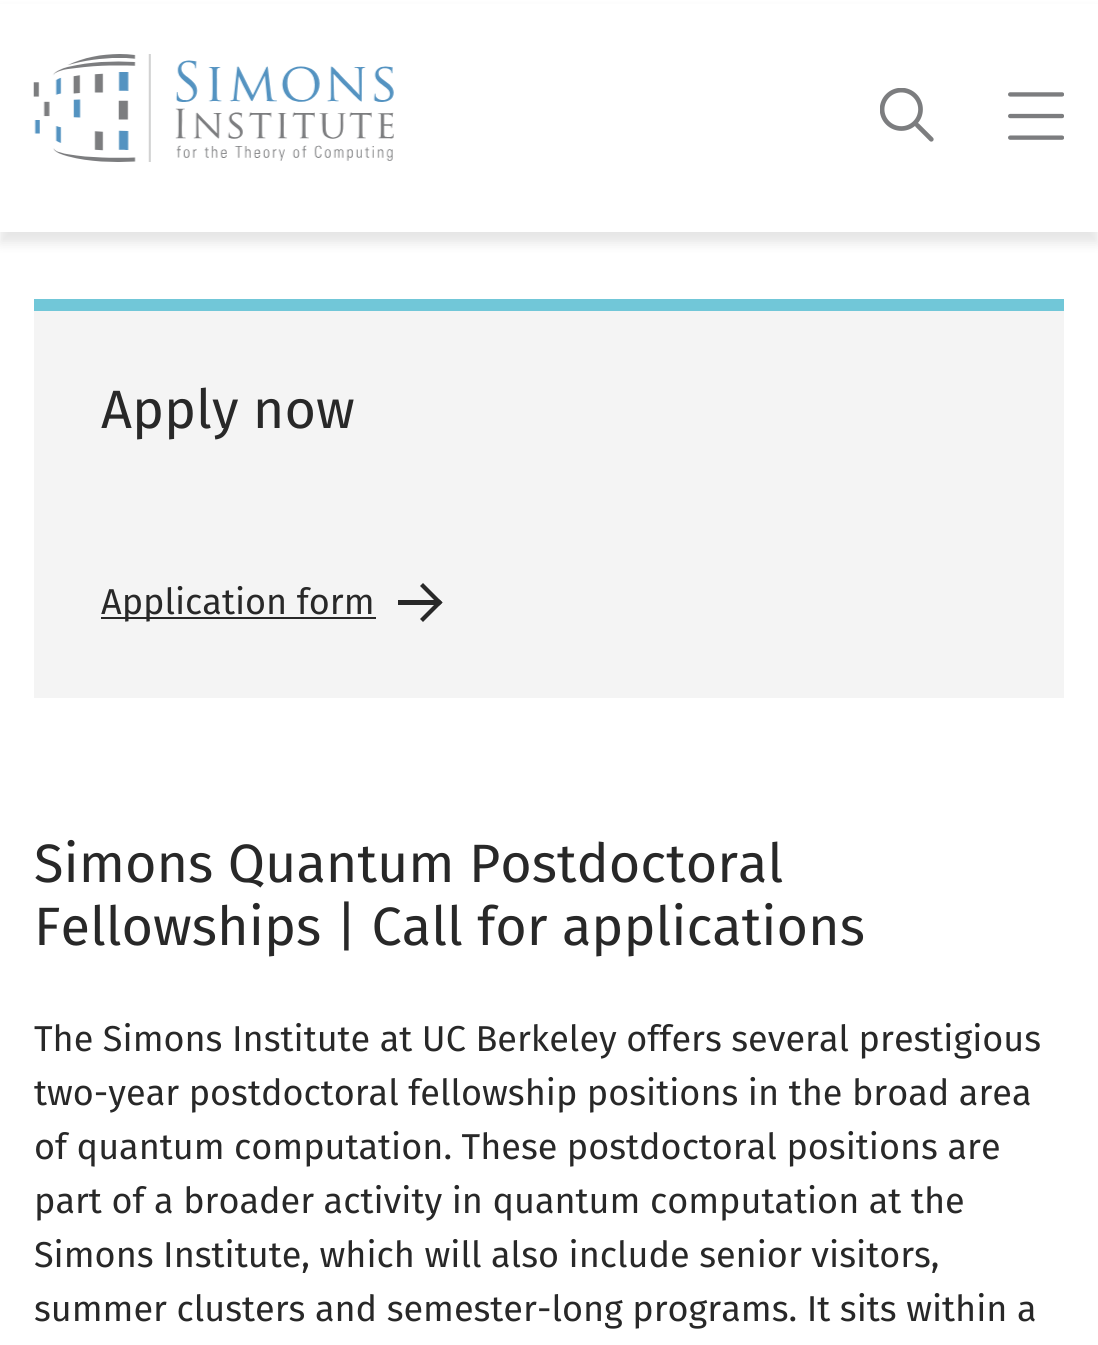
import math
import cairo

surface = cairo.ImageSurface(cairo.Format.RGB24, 1098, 1345)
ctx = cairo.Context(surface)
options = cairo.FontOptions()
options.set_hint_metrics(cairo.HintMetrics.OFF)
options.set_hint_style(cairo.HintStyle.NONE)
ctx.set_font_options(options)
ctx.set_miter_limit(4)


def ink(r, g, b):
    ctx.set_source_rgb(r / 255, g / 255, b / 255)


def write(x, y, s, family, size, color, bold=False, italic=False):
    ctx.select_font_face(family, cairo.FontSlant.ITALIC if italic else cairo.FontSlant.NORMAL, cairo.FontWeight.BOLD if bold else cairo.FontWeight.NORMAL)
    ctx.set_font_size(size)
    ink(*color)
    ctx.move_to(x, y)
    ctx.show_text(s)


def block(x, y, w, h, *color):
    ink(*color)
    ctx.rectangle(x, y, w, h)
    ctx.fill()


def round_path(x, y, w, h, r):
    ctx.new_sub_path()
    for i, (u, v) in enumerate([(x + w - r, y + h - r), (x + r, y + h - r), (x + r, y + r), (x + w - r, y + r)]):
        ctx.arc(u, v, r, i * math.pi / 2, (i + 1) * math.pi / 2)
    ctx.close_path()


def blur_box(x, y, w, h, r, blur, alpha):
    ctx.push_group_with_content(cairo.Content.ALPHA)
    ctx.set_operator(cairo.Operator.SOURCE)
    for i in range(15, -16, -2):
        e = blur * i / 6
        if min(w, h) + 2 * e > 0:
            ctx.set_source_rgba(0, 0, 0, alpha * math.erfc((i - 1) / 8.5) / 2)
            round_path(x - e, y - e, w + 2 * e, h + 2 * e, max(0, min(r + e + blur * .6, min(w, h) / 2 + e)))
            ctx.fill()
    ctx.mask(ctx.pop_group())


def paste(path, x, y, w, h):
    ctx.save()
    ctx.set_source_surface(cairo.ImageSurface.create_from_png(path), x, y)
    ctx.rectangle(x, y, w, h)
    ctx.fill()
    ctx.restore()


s1 = dict(family="Fira Sans", size=54, color=(40, 40, 40))
s2 = dict(family="Fira Sans", size=36, color=(40, 40, 40))

ink(255, 255, 255)
ctx.paint()
ink(0, 0, 0)
blur_box(0, 11, 1098, 232, 0, 5.5, 0.1)
block(0, 4, 1098, 228, 255, 255, 255)
paste("pic1.png", 33, 54, 361, 108)
paste("pic2.png", 880, 88, 54, 54)
paste("pic3.png", 1008, 92, 56, 48)
block(34, 311, 1030, 387, 244, 244, 244)
block(34, 299, 1030, 12, 113, 199, 216)
write(101, 428, "Apply now", **s1)
block(101, 617, 275, 2, 40, 40, 40)
write(101, 614, "Application form", **s2)
block(398, 600, 39, 5, 40, 40, 40)
ctx.new_path()
ctx.move_to(420, 619)
ctx.line_to(439.5, 599.5)
ctx.line_to(442.5, 602.5)
ctx.line_to(423, 622)
ctx.close_path()
ctx.fill()
ctx.new_path()
ctx.move_to(423, 583)
ctx.line_to(442.5, 602.5)
ctx.line_to(439.5, 605.5)
ctx.line_to(420, 586)
ctx.close_path()
ctx.fill()
write(34, 882, "Simons Quantum Postdoctoral", **s1)
write(34, 945, "Fellowships | Call for applications", **s1)
write(34, 1051, "The Simons Institute at UC Berkeley offers several prestigious", **s2)
write(34, 1105, "two-year postdoctoral fellowship positions in the broad area", **s2)
write(34, 1159, "of quantum computation. These postdoctoral positions are", **s2)
write(34, 1213, "part of a broader activity in quantum computation at the", **s2)
write(34, 1267, "Simons Institute, which will also include senior visitors,", **s2)
write(34, 1321, "summer clusters and semester-long programs. It sits within a", **s2)
surface.write_to_png("screenshot.png")
